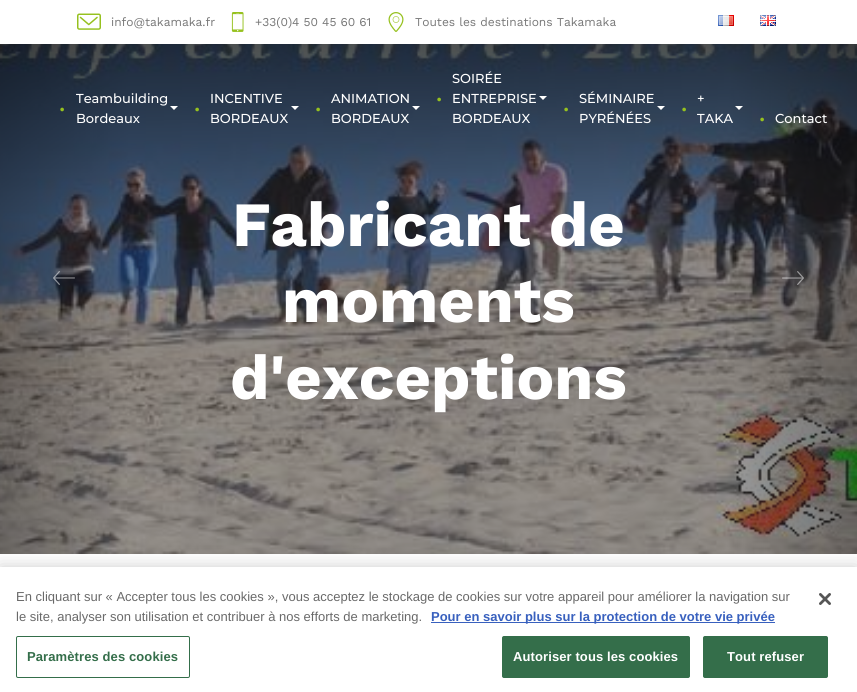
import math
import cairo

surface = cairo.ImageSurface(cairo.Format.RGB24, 857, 692)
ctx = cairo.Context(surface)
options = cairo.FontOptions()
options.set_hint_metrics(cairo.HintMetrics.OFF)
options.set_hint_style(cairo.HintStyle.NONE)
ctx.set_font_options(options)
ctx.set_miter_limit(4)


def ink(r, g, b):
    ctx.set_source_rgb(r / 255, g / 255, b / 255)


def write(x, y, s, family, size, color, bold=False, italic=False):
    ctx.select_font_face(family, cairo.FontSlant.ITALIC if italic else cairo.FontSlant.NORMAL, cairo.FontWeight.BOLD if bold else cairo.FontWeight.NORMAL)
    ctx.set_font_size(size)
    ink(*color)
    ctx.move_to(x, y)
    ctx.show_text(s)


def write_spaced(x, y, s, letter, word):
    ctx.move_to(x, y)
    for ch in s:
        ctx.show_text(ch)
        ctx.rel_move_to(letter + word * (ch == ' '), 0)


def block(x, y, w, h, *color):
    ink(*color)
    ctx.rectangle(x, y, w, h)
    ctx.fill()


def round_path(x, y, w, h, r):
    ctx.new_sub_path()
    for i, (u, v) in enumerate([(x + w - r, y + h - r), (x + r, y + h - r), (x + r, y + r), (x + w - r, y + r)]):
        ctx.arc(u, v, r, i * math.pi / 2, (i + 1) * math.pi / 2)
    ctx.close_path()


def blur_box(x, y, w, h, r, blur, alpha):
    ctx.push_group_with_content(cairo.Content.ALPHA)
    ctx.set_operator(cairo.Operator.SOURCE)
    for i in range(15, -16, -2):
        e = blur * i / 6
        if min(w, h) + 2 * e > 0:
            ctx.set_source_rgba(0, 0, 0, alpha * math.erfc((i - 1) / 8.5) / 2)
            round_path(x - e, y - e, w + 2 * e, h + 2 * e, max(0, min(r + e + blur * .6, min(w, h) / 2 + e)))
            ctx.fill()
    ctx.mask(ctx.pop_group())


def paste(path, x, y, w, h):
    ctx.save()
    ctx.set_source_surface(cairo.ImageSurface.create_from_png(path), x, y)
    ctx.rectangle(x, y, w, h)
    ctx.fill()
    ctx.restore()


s1 = dict(family="Work Sans", size=12, color=(119, 119, 119))
s2 = dict(family="Montserrat Thin", size=13, color=(255, 255, 255))
s3 = dict(family="Montserrat Thin", size=20, color=(150, 193, 31))
s4 = dict(family="Work Sans", size=63, color=(255, 255, 255), bold=True)
s5 = dict(family="Liberation Sans", size=13, color=(105, 105, 105))
s6 = dict(family="Liberation Sans", size=13, color=(56, 96, 190), bold=True)

ink(255, 255, 255)
ctx.paint()
paste("pic1.png", 77, 13, 24, 17)
write(111, 26, "info@takamaka.fr", **s1)
paste("pic2.png", 231, 12, 13, 20)
write(255, 26, "+33(0)4 50 45 60 61", **s1)
paste("pic3.png", 388, 12, 16, 20)
write(415, 26, "Toutes les destinations Takamaka", **s1)
paste("pic4.png", 718, 15, 16, 11)
paste("pic5.png", 760, 15, 16, 11)
paste("pic6.png", 0, 44, 857, 510)
write(76, 103, "Teambuilding", **s2)
write(59, 115, "•", **s3)
ink(255, 255, 255)
ctx.new_path()
ctx.move_to(170, 106)
ctx.line_to(178, 106)
ctx.line_to(174, 110)
ctx.close_path()
ctx.fill()
write(76, 123, "Bordeaux", **s2)
write(210, 103, "INCENTIVE", **s2)
write(194, 115, "•", **s3)
ink(255, 255, 255)
ctx.new_path()
ctx.move_to(291, 106)
ctx.line_to(299, 106)
ctx.line_to(295, 110)
ctx.close_path()
ctx.fill()
write(210, 123, "BORDEAUX", **s2)
write(331, 103, "ANIMATION", **s2)
write(315, 115, "•", **s3)
ink(255, 255, 255)
ctx.new_path()
ctx.move_to(412, 106)
ctx.line_to(420, 106)
ctx.line_to(416, 110)
ctx.close_path()
ctx.fill()
write(331, 123, "BORDEAUX", **s2)
write(452, 83, "SOIRÉE", **s2)
write(436, 105, "•", **s3)
write(452, 103, "ENTREPRISE", **s2)
ctx.new_path()
ctx.move_to(539, 96)
ctx.line_to(547, 96)
ctx.line_to(543, 100)
ctx.close_path()
ctx.fill()
write(452, 123, "BORDEAUX", **s2)
write(579, 103, "SÉMINAIRE", **s2)
write(563, 115, "•", **s3)
ink(255, 255, 255)
ctx.new_path()
ctx.move_to(657, 106)
ctx.line_to(665, 106)
ctx.line_to(661, 110)
ctx.close_path()
ctx.fill()
write(579, 123, "PYRÉNÉES", **s2)
write(697, 103, "+", **s2)
write(681, 115, "•", **s3)
ink(255, 255, 255)
ctx.new_path()
ctx.move_to(735, 106)
ctx.line_to(743, 106)
ctx.line_to(739, 110)
ctx.close_path()
ctx.fill()
write(697, 123, "TAKA", **s2)
write(759, 125, "•", **s3)
write(775, 123, "Contact", **s2)
paste("pic7.png", 53, 271, 22, 14)
write(232, 246, "Fabricant de", **s4)
write(282, 322, "moments", **s4)
write(230, 399, "d'exceptions", **s4)
paste("pic8.png", 782, 271, 22, 14)
ink(0, 0, 0)
blur_box(0, 567, 857, 125, 0, 9, 0.2)
block(0, 567, 857, 125, 255, 255, 255)
write(16, 601, "En cliquant sur « Accepter tous les cookies », vous acceptez le stockage de cookies sur votre appareil pour améliorer la navigation sur", **s5)
write(16, 621, "le site, analyser son utilisation et contribuer à nos efforts de marketing.", **s5)
block(431, 622, 344, 1, 56, 96, 190)
write(431, 621, "Pour en savoir plus sur la protection de votre vie privée", **s6)
round_path(16.5, 636.5, 173, 41, 1.5)
ink(52, 110, 74)
ctx.set_line_width(1)
ctx.stroke()
write_spaced(27, 661, "Paramètres des cookies", 0.1, 0)
round_path(502.5, 636.5, 187, 41, 1.5)
ctx.fill_preserve()
ctx.stroke()
ink(255, 255, 255)
write_spaced(513, 661, "Autoriser tous les cookies", 0.1, 0)
ink(52, 110, 74)
round_path(703.5, 636.5, 124, 41, 1.5)
ctx.fill_preserve()
ctx.stroke()
ink(255, 255, 255)
write_spaced(727, 661, "Tout refuser", 0.1, 0)
paste("pic9.png", 819, 593, 12, 12)
surface.write_to_png("screenshot.png")
